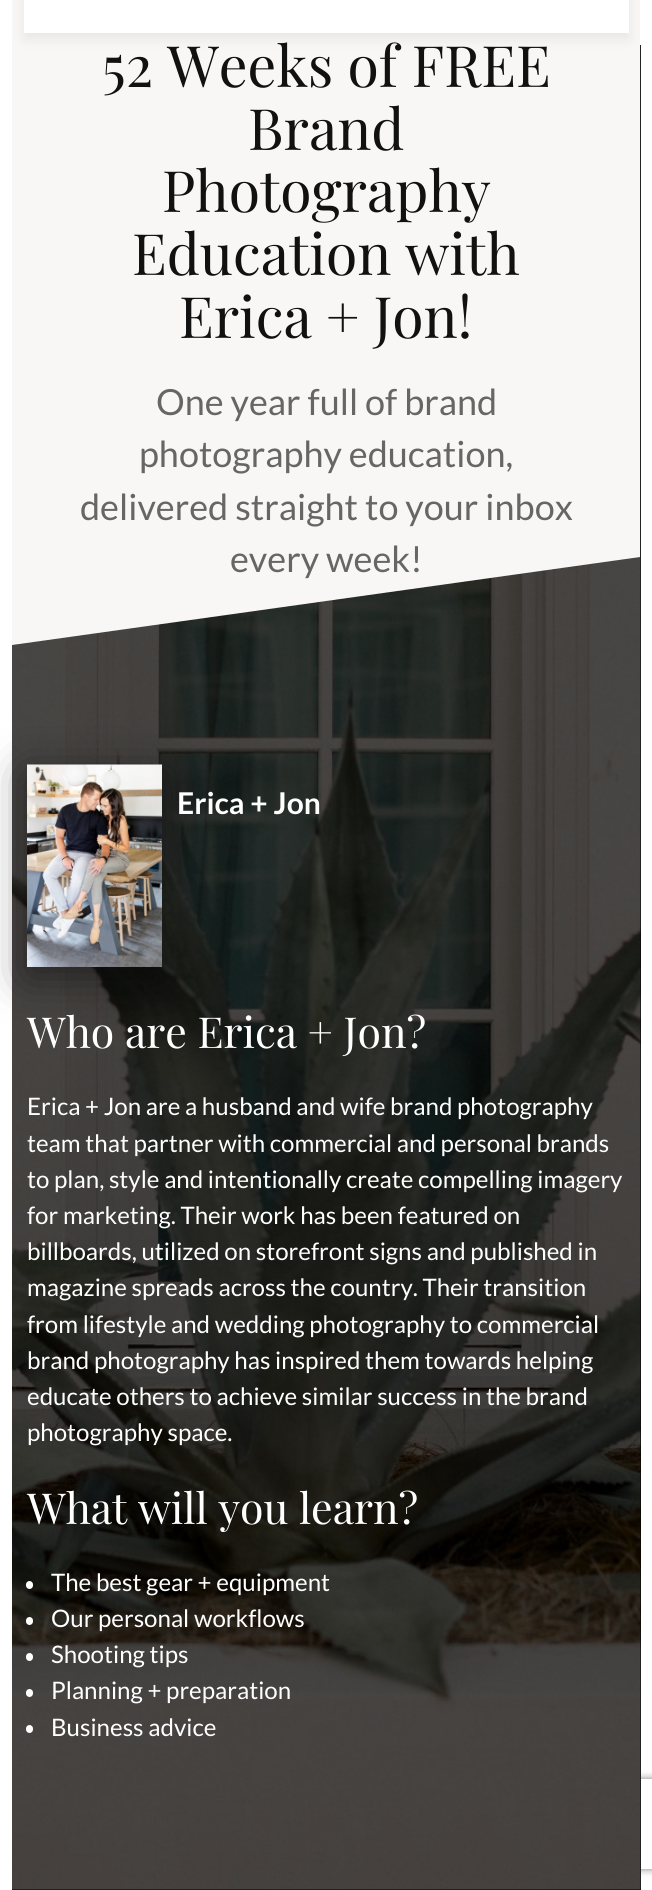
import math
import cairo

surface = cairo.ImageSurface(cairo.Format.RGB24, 652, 1890)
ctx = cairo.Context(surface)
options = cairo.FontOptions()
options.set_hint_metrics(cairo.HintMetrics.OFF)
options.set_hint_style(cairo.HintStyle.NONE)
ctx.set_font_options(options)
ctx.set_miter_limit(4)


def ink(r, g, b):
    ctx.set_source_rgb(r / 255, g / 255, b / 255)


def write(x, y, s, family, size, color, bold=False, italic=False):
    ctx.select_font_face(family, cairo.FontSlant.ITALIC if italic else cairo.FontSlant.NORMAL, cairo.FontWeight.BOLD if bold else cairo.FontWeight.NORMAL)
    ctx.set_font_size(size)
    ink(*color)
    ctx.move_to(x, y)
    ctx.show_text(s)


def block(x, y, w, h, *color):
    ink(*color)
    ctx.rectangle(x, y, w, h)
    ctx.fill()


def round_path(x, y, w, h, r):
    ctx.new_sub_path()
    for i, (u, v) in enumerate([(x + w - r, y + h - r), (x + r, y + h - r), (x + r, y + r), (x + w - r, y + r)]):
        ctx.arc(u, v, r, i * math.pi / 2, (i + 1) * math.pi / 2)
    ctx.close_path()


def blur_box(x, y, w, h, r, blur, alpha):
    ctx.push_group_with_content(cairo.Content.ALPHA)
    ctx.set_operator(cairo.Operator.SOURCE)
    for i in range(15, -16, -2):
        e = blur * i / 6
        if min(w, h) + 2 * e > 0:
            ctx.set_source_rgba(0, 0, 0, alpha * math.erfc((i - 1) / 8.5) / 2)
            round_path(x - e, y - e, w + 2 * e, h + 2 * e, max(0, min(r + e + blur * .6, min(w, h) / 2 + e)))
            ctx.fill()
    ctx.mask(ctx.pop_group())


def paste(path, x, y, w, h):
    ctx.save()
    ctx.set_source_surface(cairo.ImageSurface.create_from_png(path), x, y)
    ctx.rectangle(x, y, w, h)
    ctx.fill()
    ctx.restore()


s1 = dict(family="Playfair Display", size=57, color=(17, 17, 17))
s2 = dict(family="Lato", size=36, color=(102, 102, 102))
s3 = dict(family="Lato", size=30, color=(255, 255, 255), bold=True)
s4 = dict(family="Playfair Display", size=42.75, color=(255, 255, 255))
s5 = dict(family="Lato", size=24.1, color=(255, 255, 255))

ink(255, 255, 255)
ctx.paint()
ctx.save()
ctx.set_fill_rule(cairo.FillRule.EVEN_ODD)
ctx.new_path()
ctx.move_to(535, 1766)
ctx.line_to(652, 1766)
ctx.line_to(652, 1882)
ctx.line_to(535, 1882)
ctx.close_path()
ctx.move_to(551, 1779)
ctx.line_to(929, 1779)
ctx.curve_to(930.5, 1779, 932, 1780.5, 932, 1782)
ctx.line_to(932, 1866)
ctx.curve_to(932, 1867.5, 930.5, 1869, 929, 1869)
ctx.line_to(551, 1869)
ctx.curve_to(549.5, 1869, 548, 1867.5, 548, 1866)
ctx.line_to(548, 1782)
ctx.curve_to(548, 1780.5, 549.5, 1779, 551, 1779)
ctx.close_path()
ctx.clip()
ink(128, 128, 128)
blur_box(548, 1779, 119, 90, 3, 4, 1)
ctx.restore()
block(12, 45, 629, 1845, 0, 0, 0)
paste("pic1.png", 12, 44, 629, 1846)
ink(249, 247, 245)
ctx.new_path()
ctx.move_to(12, -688)
ctx.line_to(640, -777)
ctx.line_to(640, 557)
ctx.line_to(12, 645)
ctx.close_path()
ctx.fill()
ink(0, 0, 0)
blur_box(24, -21, 605, 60, 0, 7, 0.07)
block(24, 0, 605, 33, 255, 255, 255)
write(102, 87, "52 Weeks of FREE", **s1)
write(248, 150, "Brand", **s1)
write(162, 212, "Photography", **s1)
write(132, 275, "Education with", **s1)
write(179, 338, "Erica + Jon!", **s1)
write(156, 415, "One year full of brand", **s2)
write(139, 467, "photography education,", **s2)
write(80, 520, "delivered straight to your inbox", **s2)
write(230, 572, "every week!", **s2)
ink(0, 0, 0)
blur_box(27, 774, 135, 203, 0, 22.5, 0.5)
paste("pic2.png", 27, 764, 135, 203)
write(177, 814, "Erica + Jon", **s3)
write(27, 1048, "Who are Erica + Jon?", **s4)
write(27, 1115, "Erica + Jon are a husband and wife brand photography", **s5)
write(27, 1152, "team that partner with commercial and personal brands", **s5)
write(27, 1188, "to plan, style and intentionally create compelling imagery", **s5)
write(27, 1224, "for marketing. Their work has been featured on", **s5)
write(27, 1260, "billboards, utilized on storefront signs and published in", **s5)
write(27, 1296, "magazine spreads across the country. Their transition", **s5)
write(27, 1333, "from lifestyle and wedding photography to commercial", **s5)
write(27, 1369, "brand photography has inspired them towards helping", **s5)
write(27, 1405, "educate others to achieve similar success in the brand", **s5)
write(27, 1441, "photography space.", **s5)
write(27, 1524, "What will you learn?", **s4)
round_path(26, 1581, 7, 8, 3.5)
ctx.fill()
write(51, 1591, "The best gear + equipment", **s5)
round_path(26, 1617, 7, 8, 3.5)
ctx.fill()
write(51, 1627, "Our personal workflows", **s5)
round_path(26, 1653, 7, 8, 3.5)
ctx.fill()
write(51, 1663, "Shooting tips", **s5)
round_path(26, 1689, 7, 8, 3.5)
ctx.fill()
write(51, 1699, "Planning + preparation", **s5)
round_path(26, 1725, 7, 8, 3.5)
ctx.fill()
write(51, 1736, "Business advice", **s5)
surface.write_to_png("screenshot.png")
